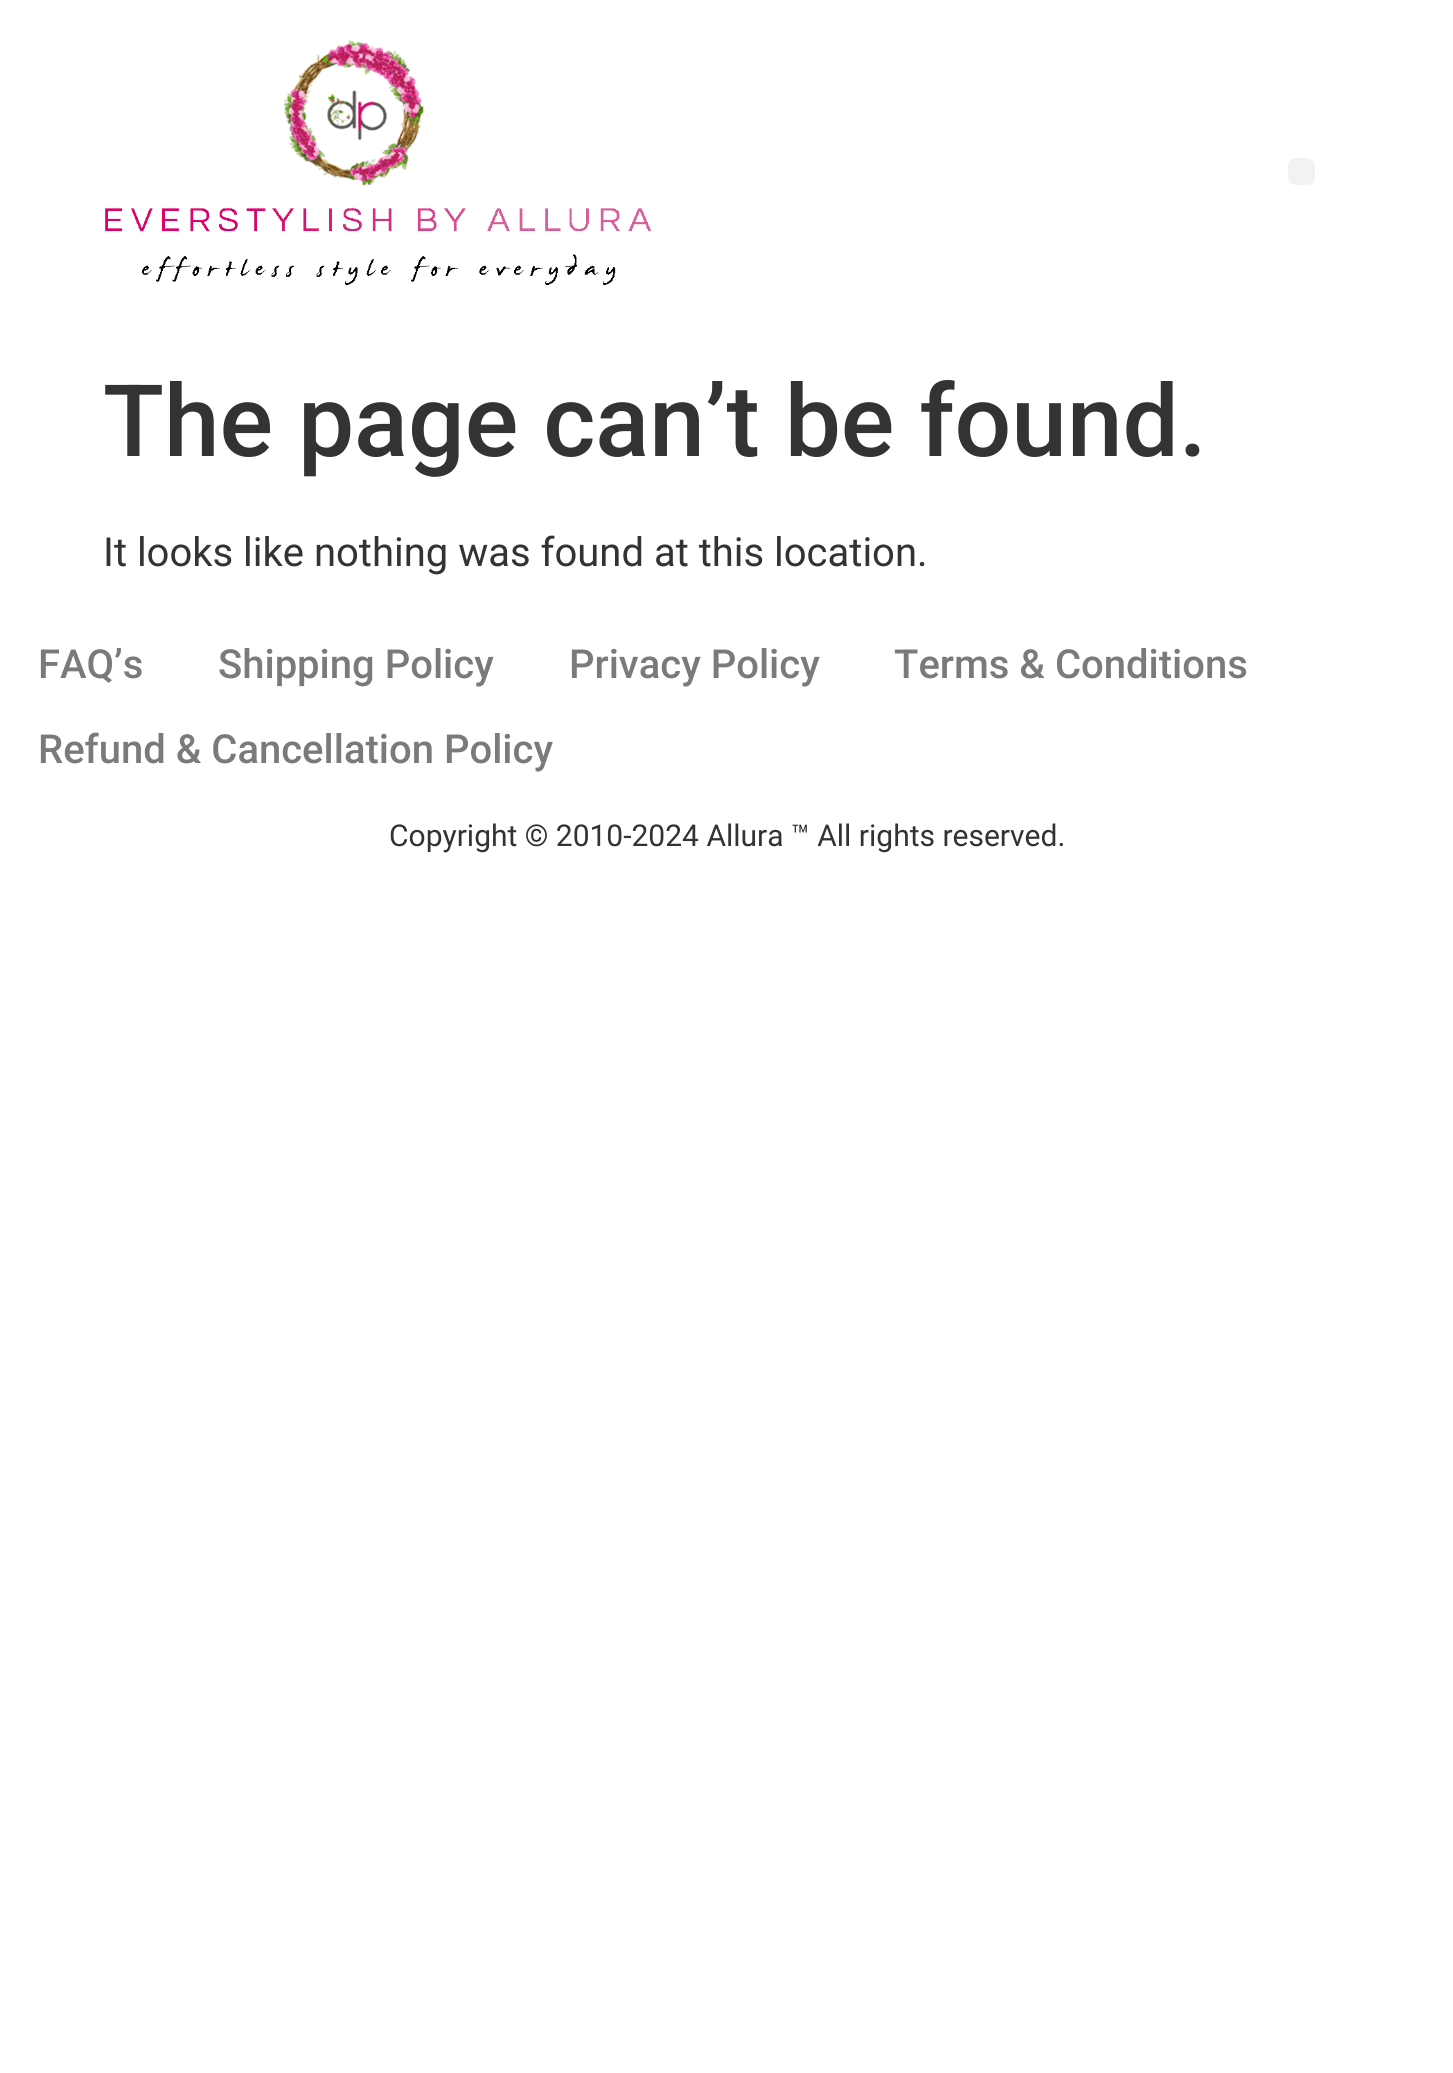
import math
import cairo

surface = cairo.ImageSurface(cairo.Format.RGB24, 1453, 2073)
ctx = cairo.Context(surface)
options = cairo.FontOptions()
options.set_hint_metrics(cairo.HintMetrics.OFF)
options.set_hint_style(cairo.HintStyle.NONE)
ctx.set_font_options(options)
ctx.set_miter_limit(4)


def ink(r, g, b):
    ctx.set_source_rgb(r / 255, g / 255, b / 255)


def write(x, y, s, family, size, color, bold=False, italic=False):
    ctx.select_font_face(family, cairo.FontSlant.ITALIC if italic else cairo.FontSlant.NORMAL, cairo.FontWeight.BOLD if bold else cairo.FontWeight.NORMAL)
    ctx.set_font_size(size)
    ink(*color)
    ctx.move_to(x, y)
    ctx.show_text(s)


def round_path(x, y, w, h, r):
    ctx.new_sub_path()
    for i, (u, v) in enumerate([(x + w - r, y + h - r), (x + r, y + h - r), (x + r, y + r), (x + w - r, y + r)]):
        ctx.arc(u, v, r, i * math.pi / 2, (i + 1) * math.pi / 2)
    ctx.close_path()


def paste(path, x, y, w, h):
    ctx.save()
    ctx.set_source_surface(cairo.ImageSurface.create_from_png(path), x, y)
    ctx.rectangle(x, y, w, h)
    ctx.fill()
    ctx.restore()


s1 = dict(family="Roboto Medium", size=100, color=(51, 51, 51))
s2 = dict(family="Roboto", size=40, color=(51, 51, 51))
s3 = dict(family="Roboto Medium", size=40, color=(122, 122, 122))
s4 = dict(family="Roboto", size=30, color=(51, 51, 51))

ink(255, 255, 255)
ctx.paint()
paste("pic1.png", 105, 40, 547, 245)
ink(242, 242, 242)
round_path(1288, 158, 27, 27, 8)
ctx.fill()
write(103, 456, "The page can’t be found.", **s1)
write(103, 566, "It looks like nothing was found at this location.", **s2)
write(38, 678, "FAQ’s", **s3)
write(218, 678, "Shipping Policy", **s3)
write(569, 678, "Privacy Policy", **s3)
write(894, 678, "Terms & Conditions", **s3)
write(38, 763, "Refund & Cancellation Policy", **s3)
write(389, 846, "Copyright © 2010-2024 Allura ™ All rights reserved.", **s4)
surface.write_to_png("screenshot.png")
